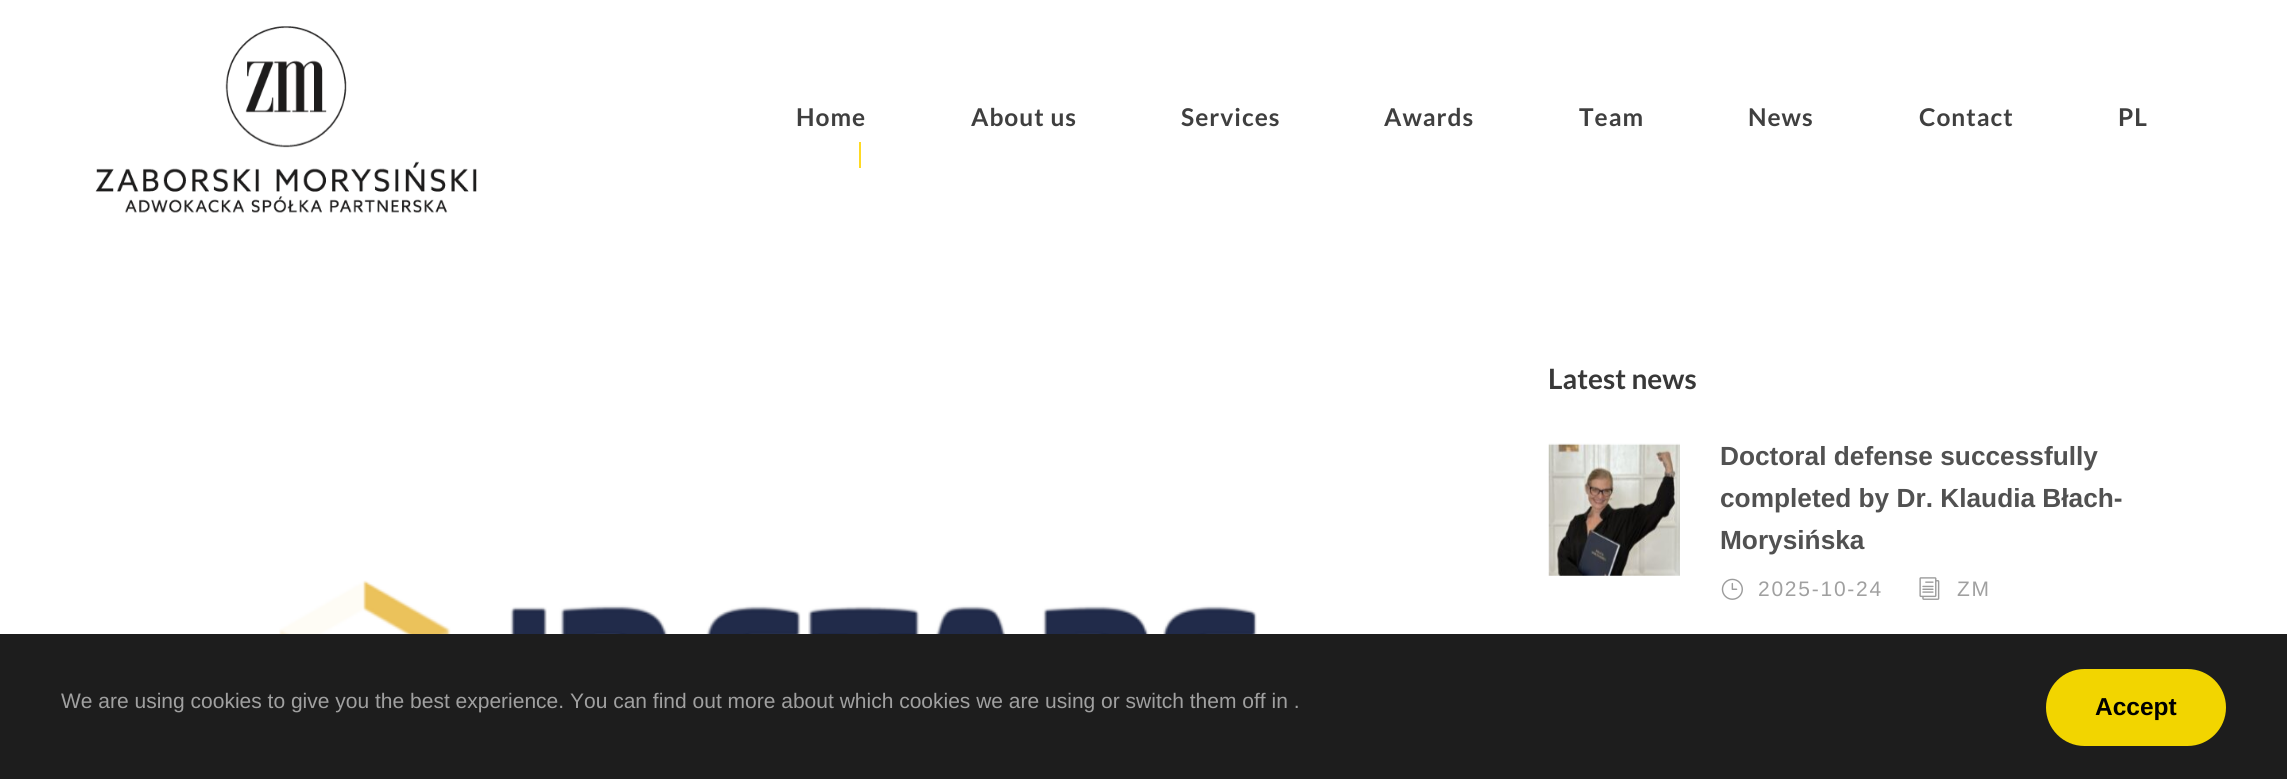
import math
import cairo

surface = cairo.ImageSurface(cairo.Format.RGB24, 2287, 779)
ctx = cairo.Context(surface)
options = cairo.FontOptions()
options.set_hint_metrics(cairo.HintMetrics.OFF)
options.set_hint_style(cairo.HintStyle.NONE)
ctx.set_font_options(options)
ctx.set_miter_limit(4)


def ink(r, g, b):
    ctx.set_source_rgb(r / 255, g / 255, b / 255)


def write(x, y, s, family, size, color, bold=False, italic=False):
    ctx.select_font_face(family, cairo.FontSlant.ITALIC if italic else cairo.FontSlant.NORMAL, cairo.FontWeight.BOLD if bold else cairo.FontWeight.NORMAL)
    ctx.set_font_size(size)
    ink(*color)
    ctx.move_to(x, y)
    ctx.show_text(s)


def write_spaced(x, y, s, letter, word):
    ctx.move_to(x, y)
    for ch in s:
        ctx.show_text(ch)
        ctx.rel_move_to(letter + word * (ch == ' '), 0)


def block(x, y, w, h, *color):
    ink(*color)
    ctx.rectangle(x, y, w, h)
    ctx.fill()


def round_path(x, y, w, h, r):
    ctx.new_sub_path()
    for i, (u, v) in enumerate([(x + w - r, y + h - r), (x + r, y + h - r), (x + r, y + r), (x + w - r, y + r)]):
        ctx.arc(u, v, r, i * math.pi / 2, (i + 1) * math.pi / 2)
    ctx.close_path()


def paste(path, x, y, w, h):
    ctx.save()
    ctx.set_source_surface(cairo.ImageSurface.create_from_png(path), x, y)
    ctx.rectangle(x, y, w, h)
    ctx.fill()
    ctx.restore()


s1 = dict(family="Lato", size=28, color=(56, 56, 56), bold=True)
s2 = dict(family="Liberation Sans", size=26.25, color=(81, 81, 81), bold=True)
s3 = dict(family="Liberation Sans", size=21, color=(160, 160, 160))
s4 = dict(family="Liberation Sans", size=24.5, color=(0, 0, 0), bold=True)

ink(255, 255, 255)
ctx.paint()
paste("pic1.png", 95, 26, 382, 187)
ctx.select_font_face("Lato", cairo.FontSlant.NORMAL, cairo.FontWeight.BOLD)
ctx.set_font_size(24.5)
ink(63, 63, 63)
write_spaced(796, 126, "Home", 1, 0)
write_spaced(971, 126, "About us", 1, 0)
write_spaced(1181, 126, "Services", 1, 0)
write_spaced(1384, 126, "Awards", 1, 0)
write_spaced(1579, 126, "Team", 1, 0)
write_spaced(1748, 126, "News", 1, 0)
write_spaced(1919, 126, "Contact", 1, 0)
write_spaced(2118, 126, "PL", 1, 0)
block(859, 142, 2, 26, 255, 218, 35)
write(1548, 389, "Latest news", **s1)
paste("pic2.png", 1548, 443, 132, 133)
write(1720, 465, "Doctoral defense successfully", **s2)
write(1720, 507, "completed by Dr. Klaudia Błach-", **s2)
write(1720, 549, "Morysińska", **s2)
paste("pic3.png", 1721, 578, 22, 22)
ctx.select_font_face("Liberation Sans")
ctx.set_font_size(21)
ink(160, 160, 160)
write_spaced(1758, 596, "2025-10-24", 1.75, 0)
paste("pic4.png", 1919, 577, 21, 23)
write_spaced(1957, 596, "ZM", 1.75, 0)
paste("pic5.png", 279, 580, 984, 54)
block(0, 634, 2287, 145, 29, 29, 29)
write(61, 708, "We are using cookies to give you the best experience. You can find out more about which cookies we are using or switch them off in .", **s3)
ink(242, 213, 0)
round_path(2046, 669, 180, 77, 38.5)
ctx.fill()
write(2095, 715, "Accept", **s4)
surface.write_to_png("screenshot.png")
